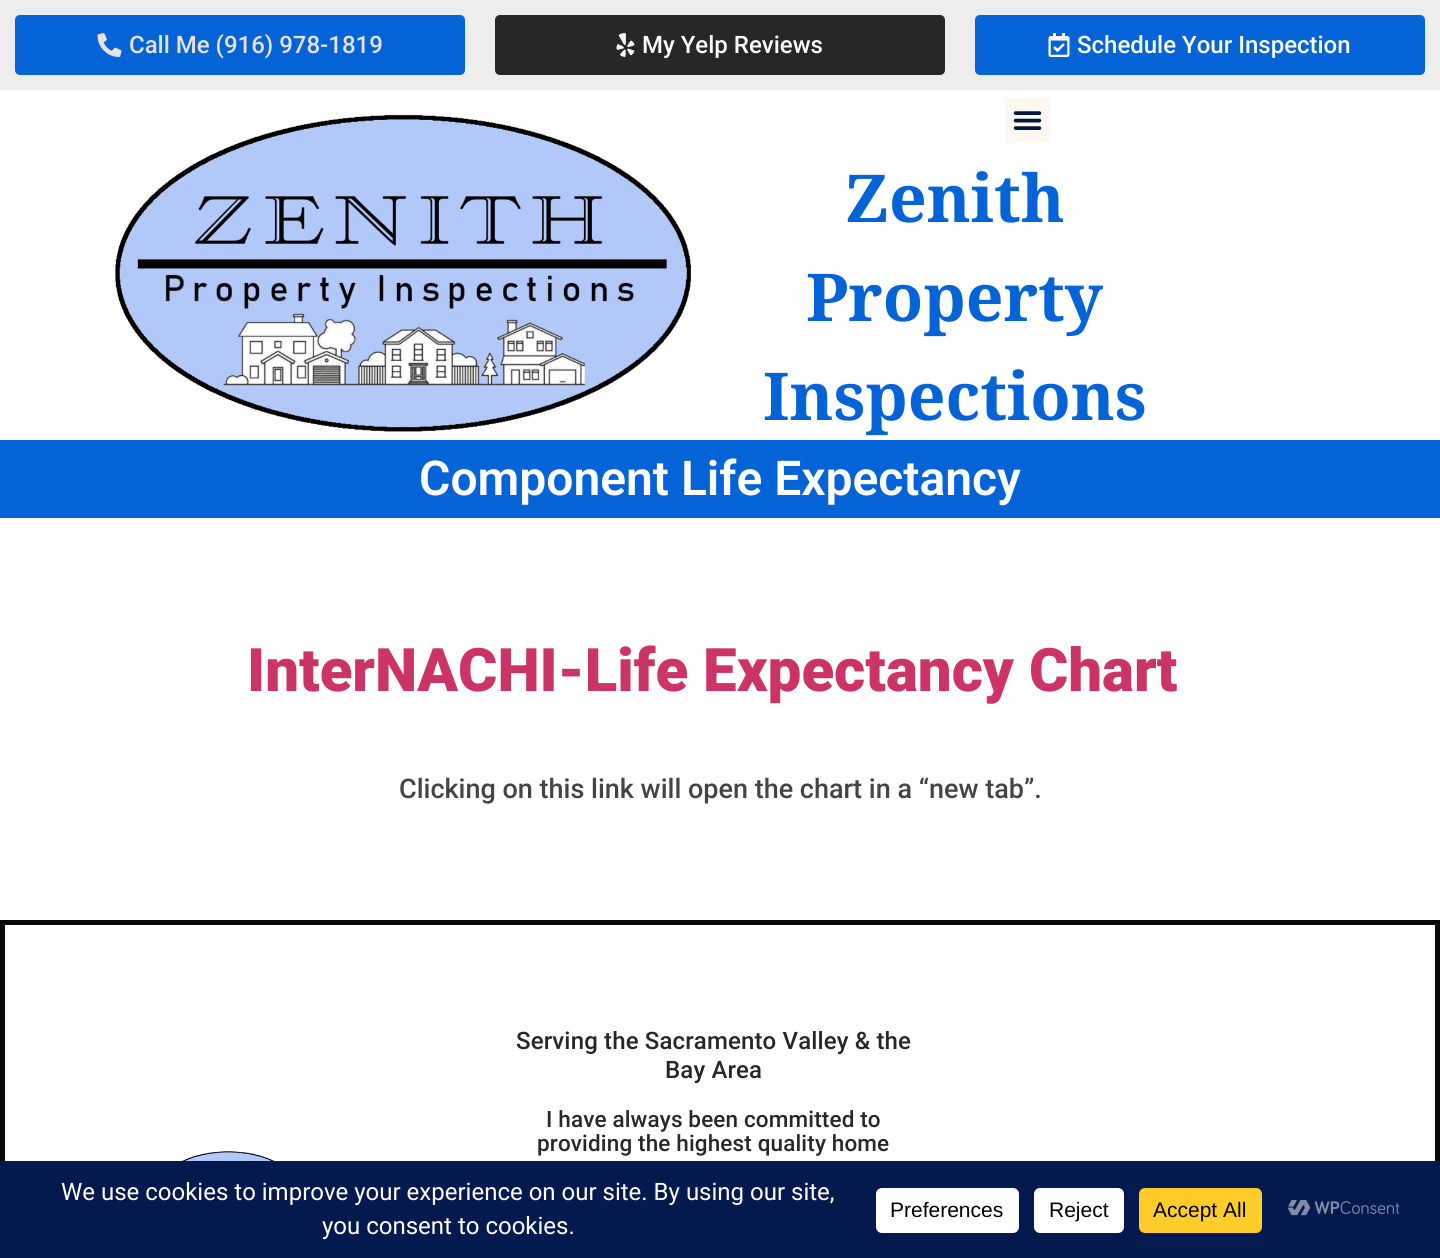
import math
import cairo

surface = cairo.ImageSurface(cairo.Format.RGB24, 1440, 1258)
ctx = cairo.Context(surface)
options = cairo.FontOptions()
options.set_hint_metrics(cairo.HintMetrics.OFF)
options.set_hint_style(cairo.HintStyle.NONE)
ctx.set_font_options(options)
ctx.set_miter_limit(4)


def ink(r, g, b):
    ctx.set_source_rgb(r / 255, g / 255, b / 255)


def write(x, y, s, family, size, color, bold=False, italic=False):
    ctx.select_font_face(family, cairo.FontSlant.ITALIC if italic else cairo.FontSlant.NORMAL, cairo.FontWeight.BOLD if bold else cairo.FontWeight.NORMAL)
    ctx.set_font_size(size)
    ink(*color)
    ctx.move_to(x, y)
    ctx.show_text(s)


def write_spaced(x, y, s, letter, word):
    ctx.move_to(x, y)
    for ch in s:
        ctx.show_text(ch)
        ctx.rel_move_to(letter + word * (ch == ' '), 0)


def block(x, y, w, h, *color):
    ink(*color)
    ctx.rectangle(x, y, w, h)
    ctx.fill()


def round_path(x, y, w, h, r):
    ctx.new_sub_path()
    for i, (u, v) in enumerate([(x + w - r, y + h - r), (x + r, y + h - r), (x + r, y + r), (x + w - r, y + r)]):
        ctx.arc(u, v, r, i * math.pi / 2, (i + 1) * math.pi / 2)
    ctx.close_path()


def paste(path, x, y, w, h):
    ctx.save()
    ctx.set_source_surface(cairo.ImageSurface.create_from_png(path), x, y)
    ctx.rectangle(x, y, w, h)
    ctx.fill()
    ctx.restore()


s1 = dict(family="Roboto Medium", size=24, color=(233, 226, 226))
s2 = dict(family="Roboto Medium", size=24, color=(255, 255, 255))
s3 = dict(family="Noto Serif Telugu", size=66, color=(4, 100, 215), bold=True)
s4 = dict(family="Roboto SemiBold", size=48, color=(255, 255, 255))
s5 = dict(family="Roboto Black", size=60, color=(204, 51, 102))
s6 = dict(family="Roboto Medium", size=27, color=(68, 68, 68))
s7 = dict(family="Roboto", size=24, color=(255, 255, 255))
s8 = dict(family="Liberation Sans", size=21, color=(0, 0, 0))

ink(255, 255, 255)
ctx.paint()
block(0, 0, 1440, 90, 237, 237, 237)
ink(4, 100, 215)
round_path(15, 15, 450, 60, 5)
ctx.fill()
paste("pic1.png", 97, 33, 25, 24)
write(129, 53, "Call Me (916) 978-1819", **s1)
ink(39, 39, 39)
round_path(495, 15, 450, 60, 5)
ctx.fill()
paste("pic2.png", 616, 33, 19, 24)
write(642, 53, "My Yelp Reviews", **s2)
ink(4, 100, 215)
round_path(975, 15, 450, 60, 5)
ctx.fill()
paste("pic3.png", 1048, 33, 22, 24)
write(1077, 53, "Schedule Your Inspection", **s2)
paste("pic4.png", 115, 114, 576, 318)
block(1005, 98, 45, 45, 255, 247, 241)
paste("pic5.png", 1013, 111, 29, 19)
write(845, 222, "Zenith", **s3)
write(806, 321, "Property", **s3)
write(763, 420, "Inspections", **s3)
block(0, 440, 1440, 78, 4, 100, 215)
write(419, 495, "Component Life Expectancy", **s4)
write(247, 691, "InterNACHI-Life Expectancy Chart", **s5)
write(399, 798, "Clicking on this link will open the chart in a “new tab”.", **s6)
ctx.rectangle(2.5, 922.5, 1435, 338)
ink(9, 9, 9)
ctx.set_line_width(5)
ctx.stroke()
paste("pic6.png", 182, 1151, 93, 10)
ctx.set_font_size(24)
ink(39, 39, 39)
write_spaced(516, 1049, "Serving the Sacramento Valley & the", 0.15, 0)
write_spaced(665, 1078, "Bay Area", 0.15, 0)
ctx.set_font_size(22.5)
write_spaced(546, 1127, "I have always been committed to", 0.15, 0)
write_spaced(537, 1151, "providing the highest quality home", 0.15, 0)
block(0, 1161, 1440, 97, 4, 25, 78)
write(61, 1200, "We use cookies to improve your experience on our site. By using our site,", **s7)
write(322, 1234, "you consent to cookies.", **s7)
round_path(876, 1188, 143, 45, 6)
ctx.fill()
write(890, 1217, "Preferences", **s8)
ink(255, 255, 255)
round_path(1034, 1188, 90, 45, 6)
ctx.fill()
write(1049, 1217, "Reject", **s8)
ink(255, 205, 42)
round_path(1139, 1188, 123, 45, 6)
ctx.fill()
write(1153, 1217, "Accept All", **s8)
paste("pic7.png", 1288, 1200, 112, 16)
surface.write_to_png("screenshot.png")
